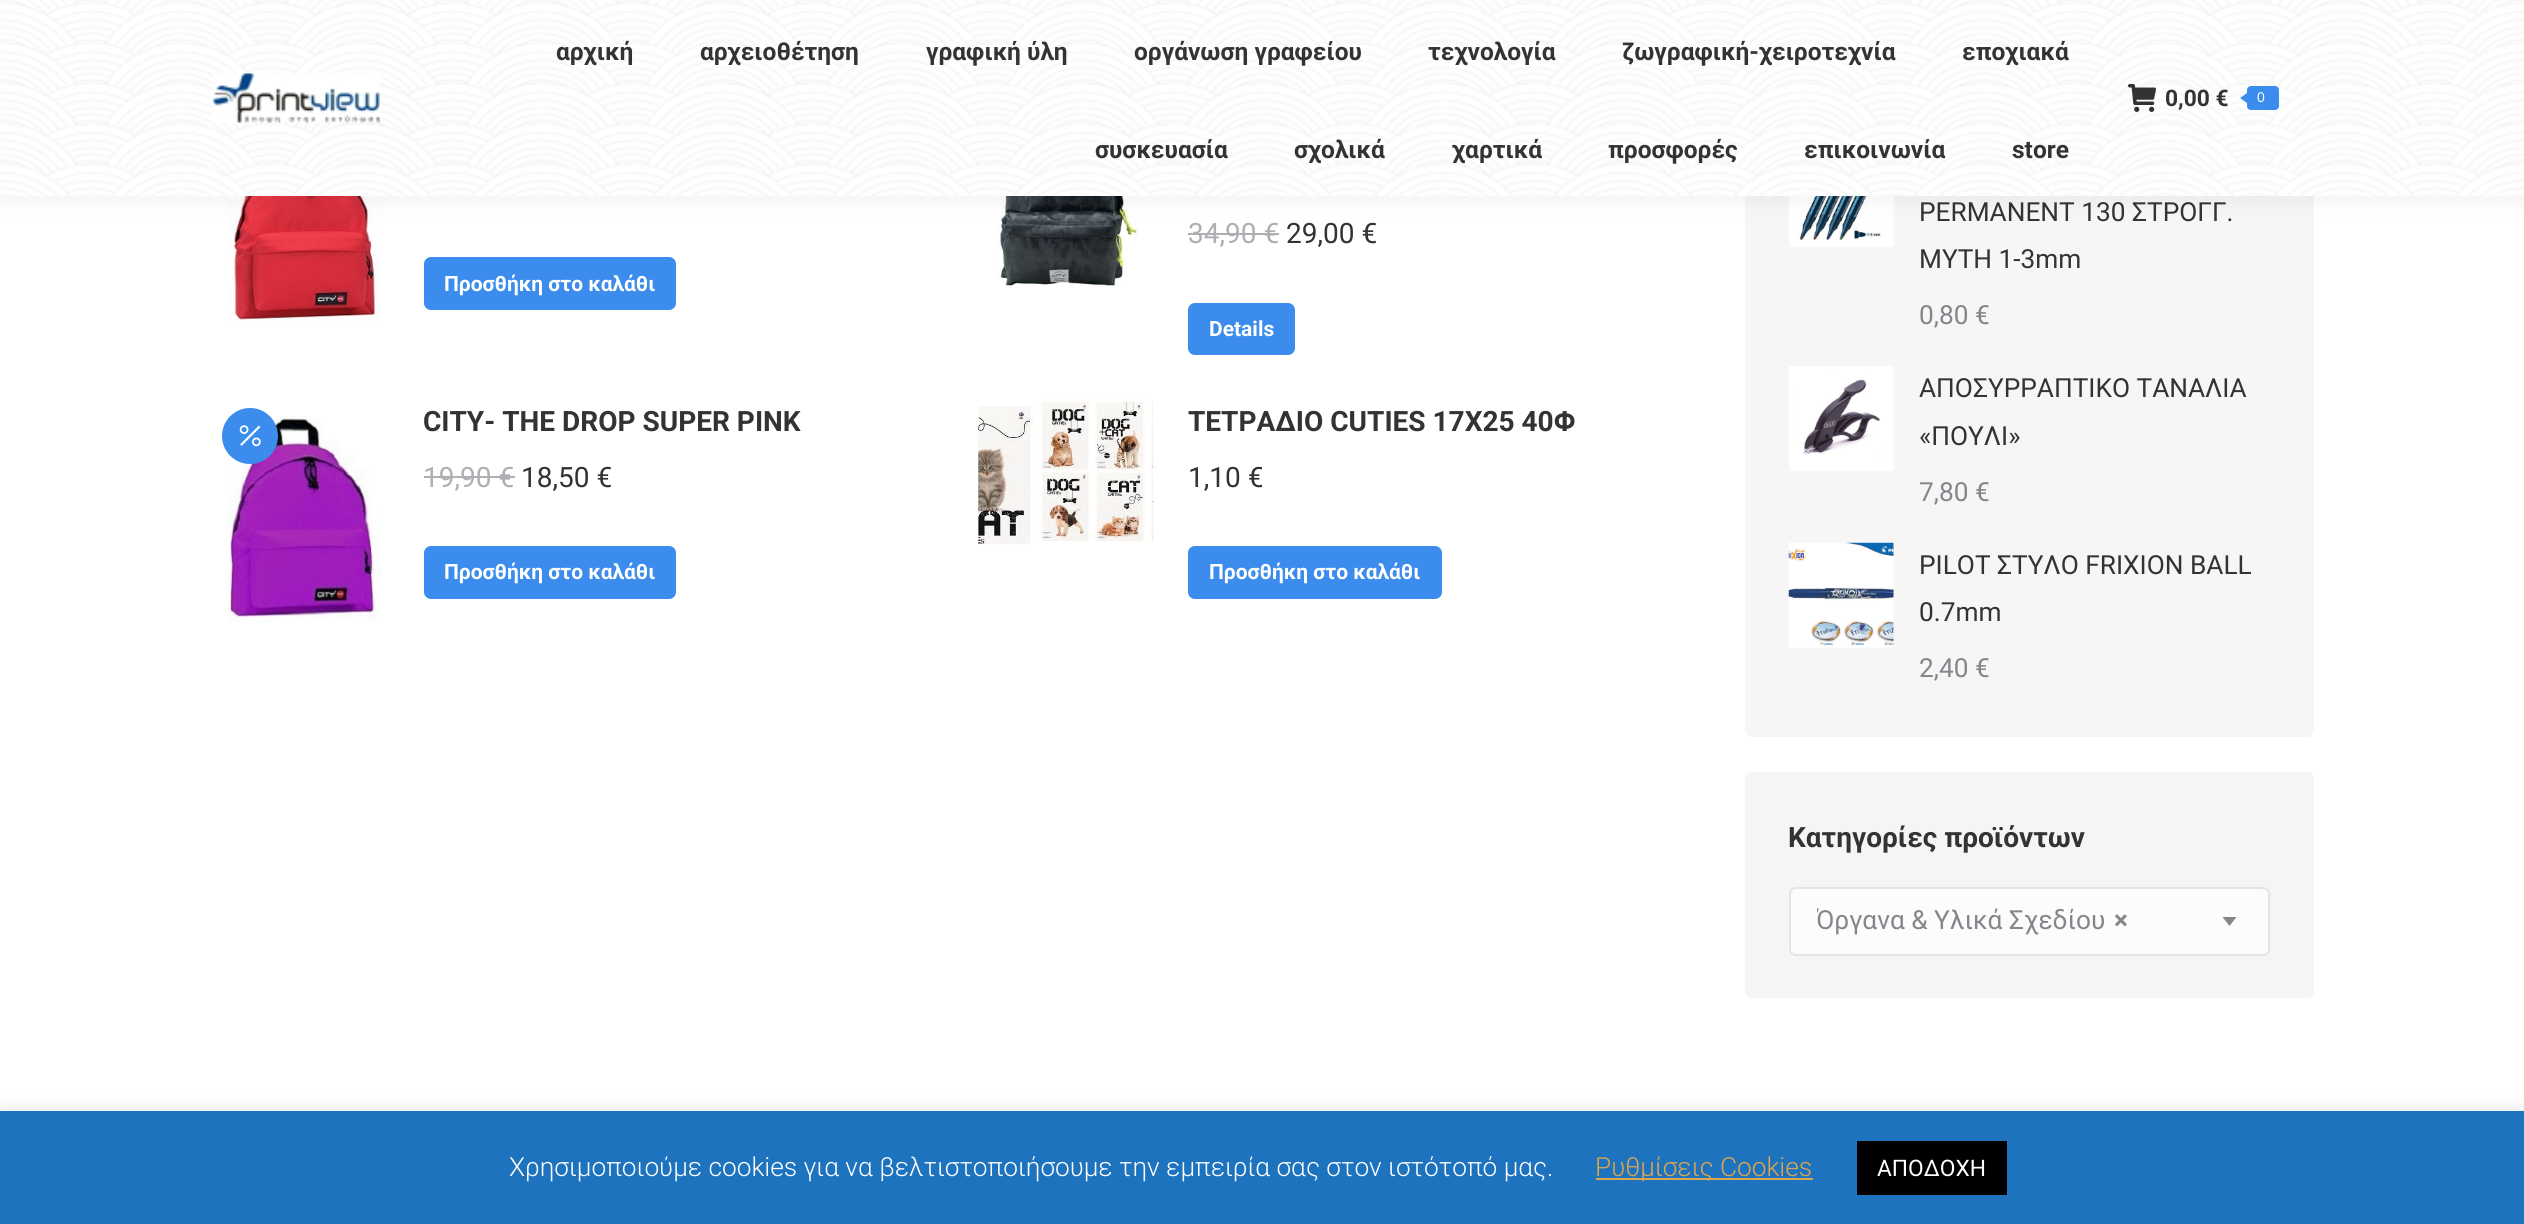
import math
import cairo

surface = cairo.ImageSurface(cairo.Format.RGB24, 2524, 1224)
ctx = cairo.Context(surface)
options = cairo.FontOptions()
options.set_hint_metrics(cairo.HintMetrics.OFF)
options.set_hint_style(cairo.HintStyle.NONE)
ctx.set_font_options(options)
ctx.set_miter_limit(4)


def ink(r, g, b):
    ctx.set_source_rgb(r / 255, g / 255, b / 255)


def write(x, y, s, family, size, color, bold=False, italic=False):
    ctx.select_font_face(family, cairo.FontSlant.ITALIC if italic else cairo.FontSlant.NORMAL, cairo.FontWeight.BOLD if bold else cairo.FontWeight.NORMAL)
    ctx.set_font_size(size)
    ink(*color)
    ctx.move_to(x, y)
    ctx.show_text(s)


def block(x, y, w, h, *color):
    ink(*color)
    ctx.rectangle(x, y, w, h)
    ctx.fill()


def round_path(x, y, w, h, r):
    ctx.new_sub_path()
    for i, (u, v) in enumerate([(x + w - r, y + h - r), (x + r, y + h - r), (x + r, y + r), (x + w - r, y + r)]):
        ctx.arc(u, v, r, i * math.pi / 2, (i + 1) * math.pi / 2)
    ctx.close_path()


def blur_box(x, y, w, h, r, blur, alpha):
    ctx.push_group_with_content(cairo.Content.ALPHA)
    ctx.set_operator(cairo.Operator.SOURCE)
    for i in range(15, -16, -2):
        e = blur * i / 6
        if min(w, h) + 2 * e > 0:
            ctx.set_source_rgba(0, 0, 0, alpha * math.erfc((i - 1) / 8.5) / 2)
            round_path(x - e, y - e, w + 2 * e, h + 2 * e, max(0, min(r + e + blur * .6, min(w, h) / 2 + e)))
            ctx.fill()
    ctx.mask(ctx.pop_group())


def paste(path, x, y, w, h):
    ctx.save()
    ctx.set_source_surface(cairo.ImageSurface.create_from_png(path), x, y)
    ctx.rectangle(x, y, w, h)
    ctx.fill()
    ctx.restore()


s1 = dict(family="Roboto", size=24.5, color=(51, 51, 51), bold=True)
s2 = dict(family="Roboto", size=22.75, color=(51, 51, 51), bold=True)
s3 = dict(family="Liberation Sans", size=14, color=(255, 255, 255))
s4 = dict(family="Roboto", size=21, color=(255, 255, 255), bold=True)
s5 = dict(family="Roboto", size=28, color=(173, 175, 179))
s6 = dict(family="Roboto", size=28, color=(51, 51, 51))
s7 = dict(family="Roboto", size=28, color=(51, 51, 51), bold=True)
s8 = dict(family="Roboto", size=26.25, color=(51, 51, 51))
s9 = dict(family="Roboto", size=26.25, color=(133, 134, 140))
s10 = dict(family="Roboto", size=26.25, color=(133, 134, 140), bold=True)
s11 = dict(family="Roboto Light", size=26.25, color=(255, 255, 255))
s12 = dict(family="Roboto Light", size=26.25, color=(221, 165, 79))
s13 = dict(family="Roboto", size=22.75, color=(255, 255, 255))

ink(255, 255, 255)
ctx.paint()
paste("pic4.png", 227, 196, 155, 125)
paste("pic5.png", 997, 196, 141, 90)
block(1188, 233, 91, 2, 173, 175, 179)
ink(246, 246, 246)
round_path(1745, -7, 569, 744, 7)
ctx.fill()
paste("pic9.png", 1789, 196, 105, 51)
ink(0, 0, 0)
blur_box(-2, -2, 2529, 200, 0, 13, 0.07)
paste("pic1.png", 0, 0, 2524, 196)
paste("pic2.png", 213, 73, 167, 50)
write(556, 60, "αρχική", **s1)
write(700, 60, "αρχειοθέτηση", **s1)
write(926, 60, "γραφική ύλη", **s1)
write(1134, 60, "οργάνωση γραφείου", **s1)
write(1428, 60, "τεχνολογία", **s1)
write(1622, 60, "ζωγραφική-χειροτεχνία", **s1)
write(1962, 60, "εποχιακά", **s1)
write(1095, 158, "συσκευασία", **s1)
write(1294, 158, "σχολικά", **s1)
write(1452, 158, "χαρτικά", **s1)
write(1608, 158, "προσφορές", **s1)
write(1804, 158, "επικοινωνία", **s1)
write(2012, 158, "store", **s1)
paste("pic3.png", 2128, 84, 28, 28)
write(2165, 106, "0,00 €", **s2)
ink(59, 140, 237)
round_path(2247, 86, 32, 24, 4)
ctx.fill()
ctx.new_path()
ctx.move_to(2247, 93)
ctx.line_to(2247, 103)
ctx.line_to(2240, 98)
ctx.close_path()
ctx.fill()
write(2257, 102, "0", **s3)
ink(59, 140, 237)
round_path(424, 257, 252, 53, 7)
ctx.fill()
write(444, 291, "Προσθήκη στο καλάθι", **s4)
write(1188, 243, "34,90 €", **s5)
write(1286, 243, "29,00 €", **s6)
ink(59, 140, 237)
round_path(1188, 303, 107, 52, 7)
ctx.fill()
write(1209, 336, "Details", **s4)
paste("pic7.png", 226, 416, 156, 207)
ink(59, 140, 237)
ctx.arc(250, 436, 28, 0, 2 * math.pi)
ctx.fill()
paste("pic6.png", 239, 425, 22, 22)
write(423, 431, "CITY- THE DROP SUPER PINK", **s7)
write(423, 487, "19,90 €", **s5)
block(424, 476, 91, 2, 173, 175, 179)
write(521, 487, "18,50 €", **s6)
ink(59, 140, 237)
round_path(424, 546, 252, 53, 7)
ctx.fill()
write(444, 579, "Προσθήκη στο καλάθι", **s4)
paste("pic8.png", 978, 399, 176, 146)
write(1188, 431, "ΤΕΤΡΑΔΙΟ CUTIES 17X25 40Φ", **s7)
write(1188, 487, "1,10 €", **s6)
ink(59, 140, 237)
round_path(1188, 546, 254, 53, 7)
ctx.fill()
write(1209, 579, "Προσθήκη στο καλάθι", **s4)
write(1919, 221, "PERMANENT 130 ΣΤΡΟΓΓ.", **s8)
write(1919, 268, "ΜΥΤΗ 1-3mm", **s8)
write(1919, 324, "0,80 €", **s9)
paste("pic10.png", 1789, 366, 105, 105)
write(1919, 397, "ΑΠΟΣΥΡΡΑΠΤΙΚΟ ΤΑΝΑΛΙΑ", **s8)
write(1919, 445, "«ΠΟΥΛΙ»", **s8)
write(1919, 501, "7,80 €", **s9)
paste("pic11.png", 1788, 542, 106, 106)
write(1919, 574, "PILOT ΣΤΥΛΟ FRIXION BALL", **s8)
write(1919, 621, "0.7mm", **s8)
write(1919, 677, "2,40 €", **s9)
ink(245, 245, 245)
round_path(1745, 772, 569, 226, 7)
ctx.fill()
write(1788, 847, "Κατηγορίες προϊόντων", **s7)
ink(252, 252, 252)
round_path(1789, 887, 481, 69, 7)
ctx.fill()
round_path(1790, 888, 479, 67, 6)
ctx.set_source_rgba(0.2, 0.2, 0.2, 0.12)
ctx.stroke()
ctx.save()
ctx.rectangle(1817, 898, 311, 47)
ctx.clip()
write(1816, 929, "Όργανα & Υλικά Σχεδίου", **s9)
ctx.restore()
write(2114, 929, "×", **s10)
ctx.new_path()
ctx.move_to(2222.5, 917)
ctx.line_to(2236.5, 917)
ctx.line_to(2229.5, 926)
ctx.close_path()
ctx.fill()
ink(172, 171, 171)
blur_box(0, 1110, 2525, 113, 0, 9, 0.3)
block(0, 1111, 2524, 113, 30, 115, 190)
write(509, 1176, "Χρησιμοποιούμε cookies για να βελτιστοποιήσουμε την εμπειρία σας στον ιστότοπό μας.", **s11)
block(1596, 1178, 217, 2, 221, 165, 79)
write(1595, 1176, "Ρυθμίσεις Cookies", **s12)
block(1857, 1141, 150, 54, 0, 0, 0)
write(1877, 1176, "ΑΠΟΔΟΧΗ", **s13)
surface.write_to_png("screenshot.png")
